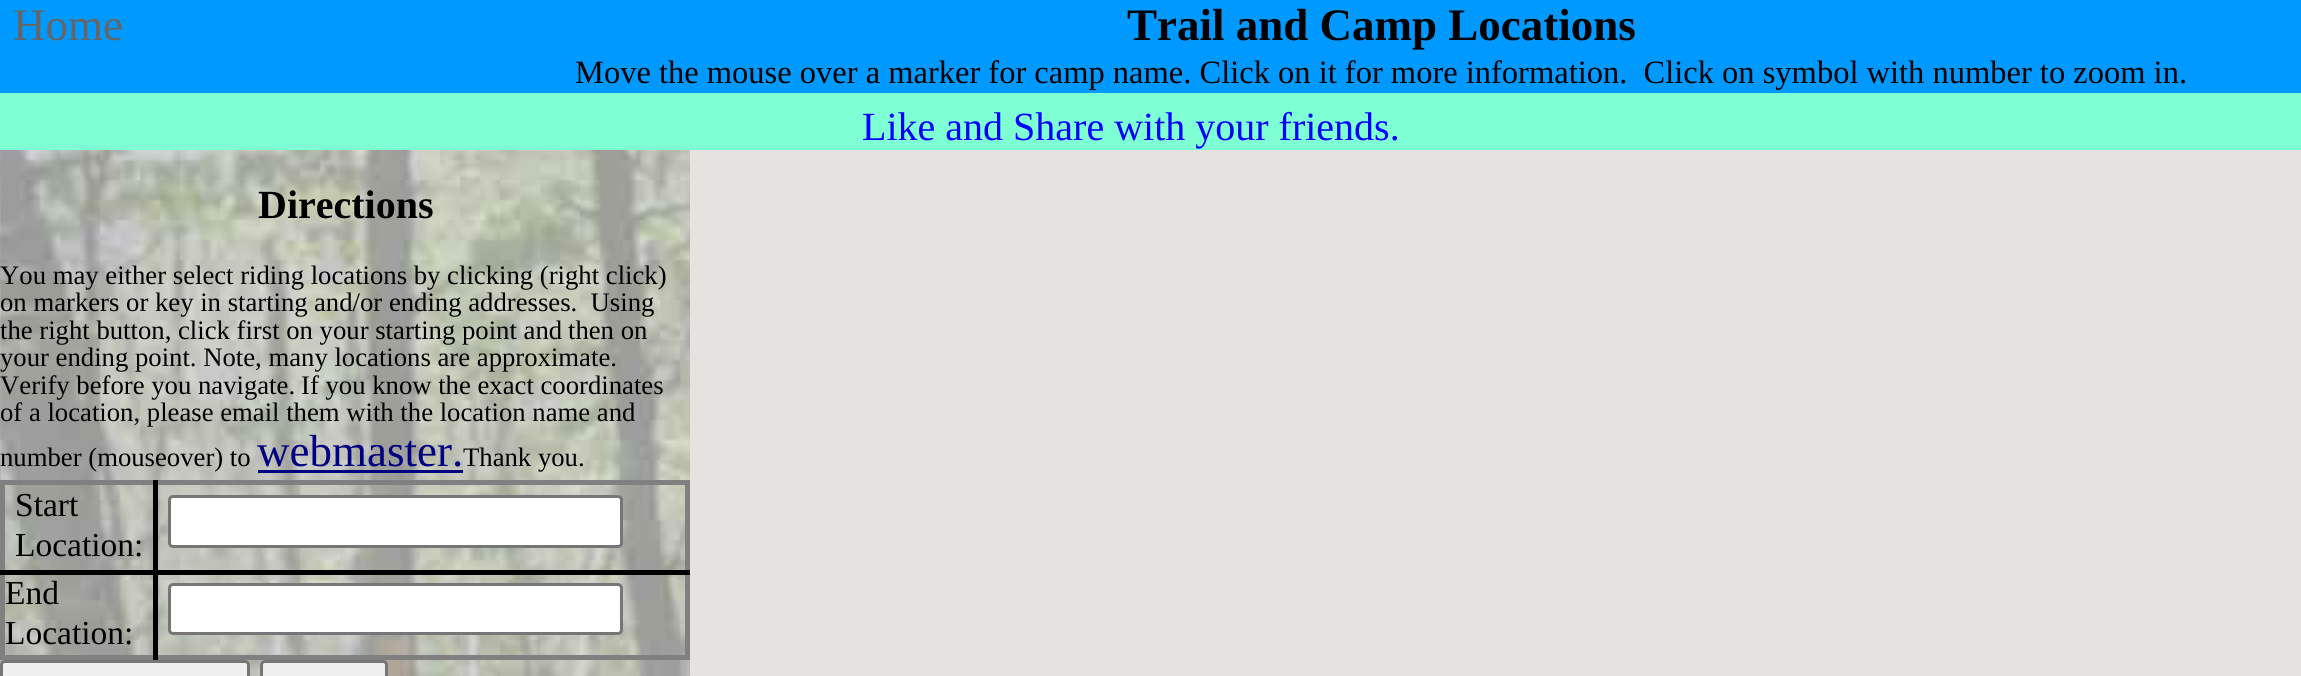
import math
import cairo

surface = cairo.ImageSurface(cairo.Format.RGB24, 2301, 676)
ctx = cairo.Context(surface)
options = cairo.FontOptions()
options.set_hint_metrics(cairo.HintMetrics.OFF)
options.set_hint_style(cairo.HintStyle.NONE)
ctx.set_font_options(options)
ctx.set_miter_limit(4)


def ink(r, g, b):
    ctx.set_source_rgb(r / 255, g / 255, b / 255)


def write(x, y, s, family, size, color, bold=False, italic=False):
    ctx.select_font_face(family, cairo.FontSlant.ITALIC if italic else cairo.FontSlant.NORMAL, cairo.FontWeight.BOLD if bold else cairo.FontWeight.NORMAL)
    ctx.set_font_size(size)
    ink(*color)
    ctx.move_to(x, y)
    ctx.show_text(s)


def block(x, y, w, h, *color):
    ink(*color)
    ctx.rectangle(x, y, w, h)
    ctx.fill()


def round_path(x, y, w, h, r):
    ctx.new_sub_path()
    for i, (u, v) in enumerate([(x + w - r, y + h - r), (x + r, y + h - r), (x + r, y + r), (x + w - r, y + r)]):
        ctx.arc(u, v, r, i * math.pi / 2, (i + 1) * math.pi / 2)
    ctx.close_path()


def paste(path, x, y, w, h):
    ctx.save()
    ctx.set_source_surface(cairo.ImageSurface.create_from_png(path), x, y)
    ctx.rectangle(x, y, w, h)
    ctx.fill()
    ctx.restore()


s1 = dict(family="Liberation Serif", size=45, color=(103, 100, 100))
s2 = dict(family="Liberation Serif", size=45, color=(0, 0, 0), bold=True)
s3 = dict(family="Liberation Serif", size=32.5, color=(0, 0, 0))
s4 = dict(family="Liberation Serif", size=40, color=(0, 0, 255))
s5 = dict(family="Liberation Serif", size=40, color=(0, 0, 0), bold=True)
s6 = dict(family="Liberation Serif", size=26.7, color=(0, 0, 0))
s7 = dict(family="Liberation Serif", size=45, color=(0, 0, 128))
s8 = dict(family="Liberation Serif", size=33.5, color=(0, 0, 0))

ink(255, 255, 255)
ctx.paint()
paste("pic1.png", 0, 150, 690, 526)
block(0, 93, 2301, 57, 127, 255, 212)
block(0, 0, 2301, 93, 0, 153, 255)
write(13, 40, "Home", **s1)
write(1127, 40, "Trail and Camp Locations", **s2)
write(575, 83, "Move the mouse over a marker for camp name. Click on it for more information.  Click on symbol with number to zoom in.", **s3)
write(862, 140, "Like and Share with your friends.", **s4)
write(258, 218, "Directions", **s5)
write(0, 284, "You may either select riding locations by clicking (right click)", **s6)
write(0, 311, "on markers or key in starting", **s6)
write(314, 311, "and/or ending addresses.  Using", **s6)
write(0, 339, "the right button, click first on your starting point and", **s6)
write(568, 339, "then on", **s6)
write(0, 366, "your ending point. Note, many locations are approximate.", **s6)
write(0, 394, "Verify before you navigate.", **s6)
write(301, 394, "If you know the exact coordinates", **s6)
write(0, 421, "of a location, please email them with the location name and", **s6)
write(0, 466, "number (mouseover) to", **s6)
write(257, 466, "webmaster.", **s7)
block(258, 470, 205, 3, 0, 0, 128)
write(463, 466, "Thank you.", **s6)
block(0, 480, 690, 5, 128, 128, 128)
block(685, 480, 5, 180, 128, 128, 128)
block(0, 655, 690, 5, 128, 128, 128)
block(0, 480, 5, 180, 128, 128, 128)
block(153, 570, 537, 5, 0, 0, 0)
block(153, 480, 5, 180, 0, 0, 0)
block(0, 570, 158, 5, 0, 0, 0)
write(15, 516, "Start", **s8)
write(15, 556, "Location:", **s8)
ink(255, 255, 255)
round_path(169.5, 496.5, 452, 50, 3.5)
ctx.fill_preserve()
ink(118, 118, 118)
ctx.set_line_width(3)
ctx.stroke()
write(5, 604, "End", **s8)
write(5, 644, "Location:", **s8)
ink(255, 255, 255)
round_path(169.5, 584.5, 452, 49, 3.5)
ctx.fill_preserve()
ink(118, 118, 118)
ctx.stroke()
ink(239, 239, 239)
round_path(1.5, 661.5, 247, 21, 3.5)
ctx.fill_preserve()
ink(118, 118, 118)
ctx.stroke()
ink(239, 239, 239)
round_path(261.5, 661.5, 125, 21, 3.5)
ctx.fill_preserve()
ink(118, 118, 118)
ctx.stroke()
block(690, 150, 1611, 526, 229, 227, 223)
surface.write_to_png("screenshot.png")
